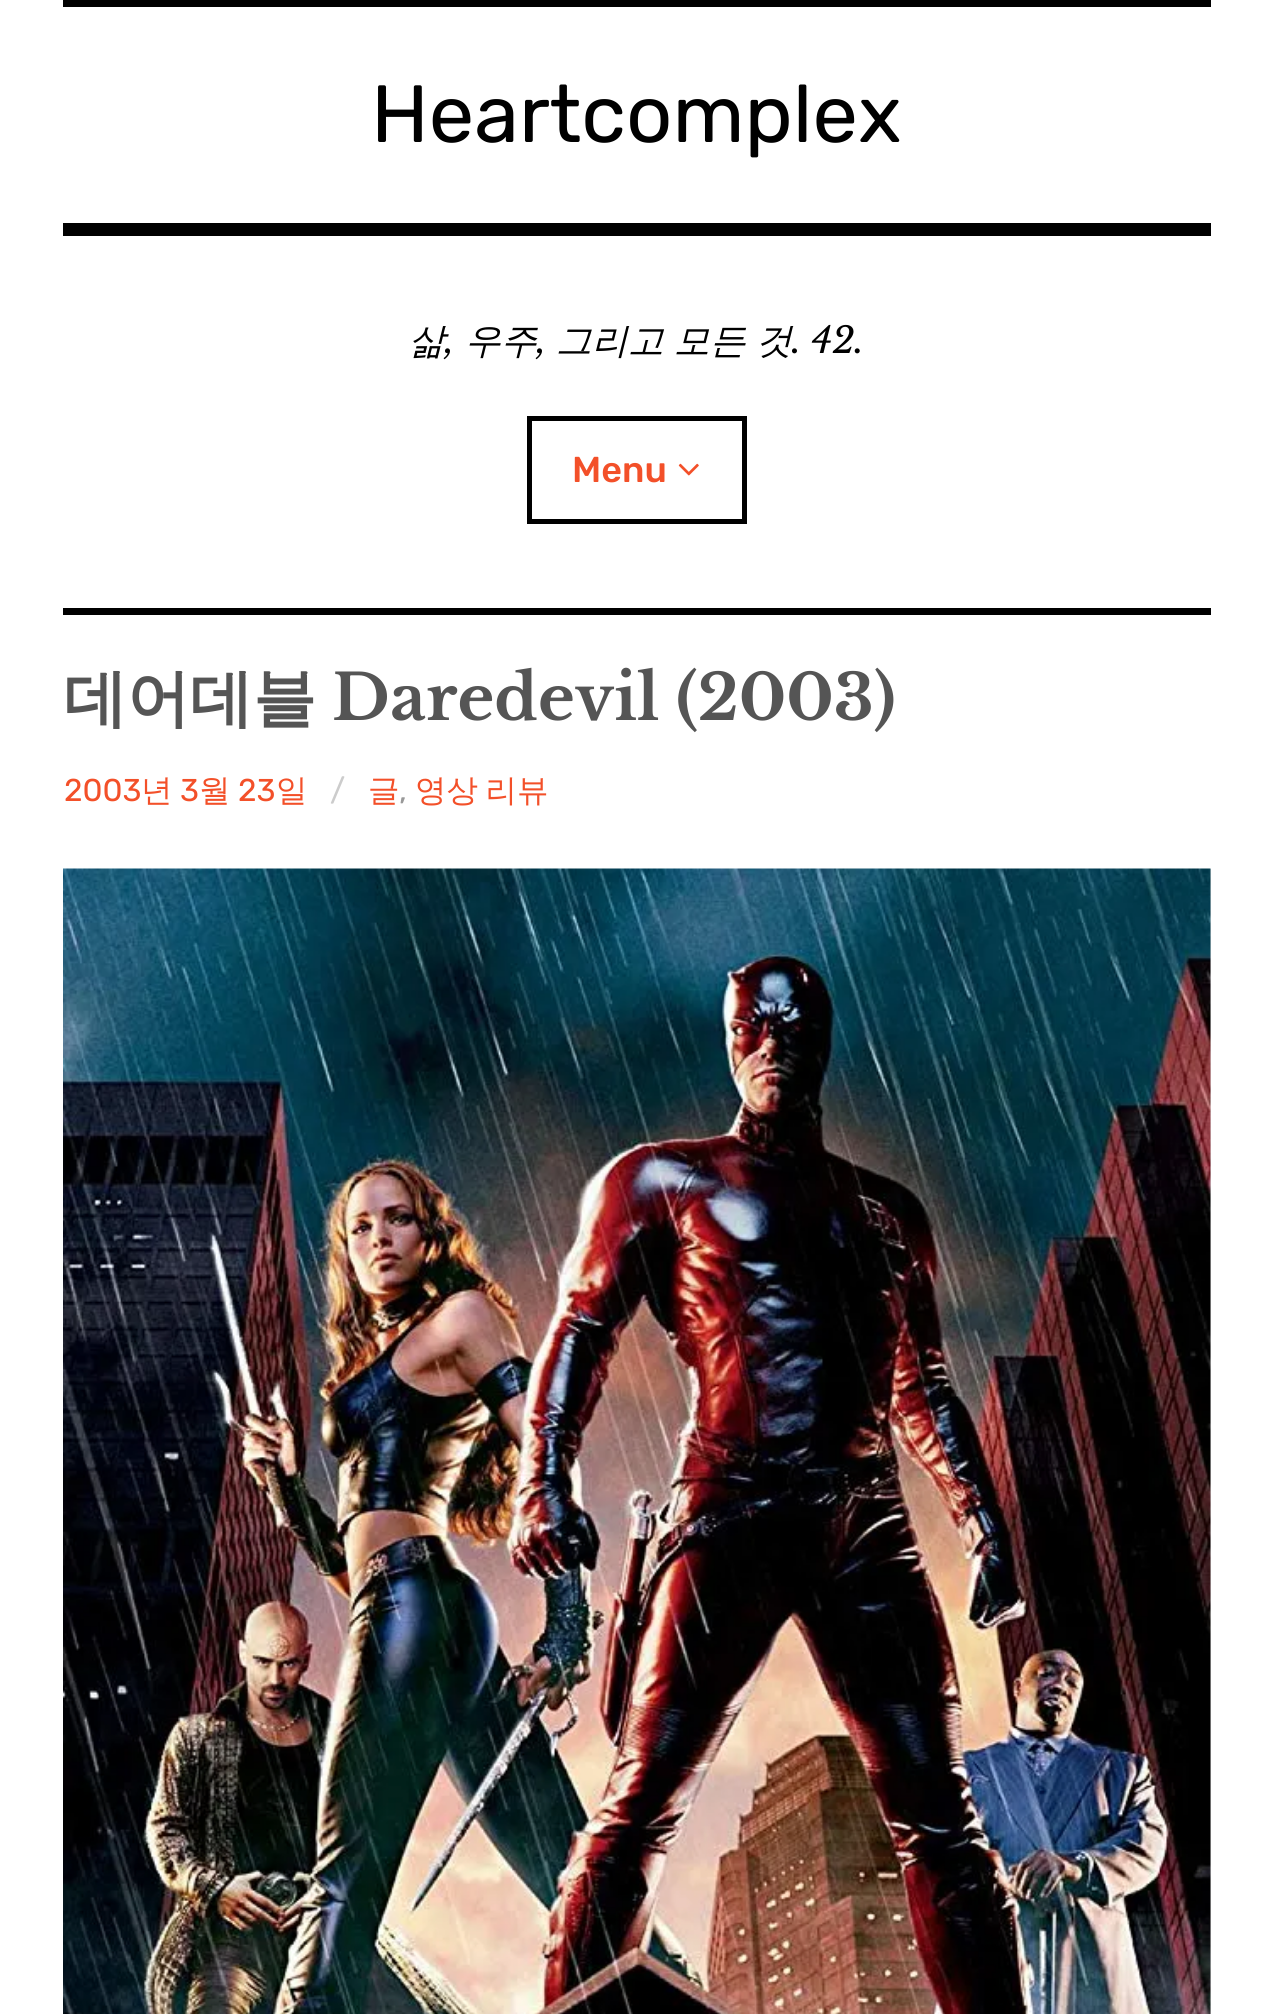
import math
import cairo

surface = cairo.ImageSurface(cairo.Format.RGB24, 1272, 2014)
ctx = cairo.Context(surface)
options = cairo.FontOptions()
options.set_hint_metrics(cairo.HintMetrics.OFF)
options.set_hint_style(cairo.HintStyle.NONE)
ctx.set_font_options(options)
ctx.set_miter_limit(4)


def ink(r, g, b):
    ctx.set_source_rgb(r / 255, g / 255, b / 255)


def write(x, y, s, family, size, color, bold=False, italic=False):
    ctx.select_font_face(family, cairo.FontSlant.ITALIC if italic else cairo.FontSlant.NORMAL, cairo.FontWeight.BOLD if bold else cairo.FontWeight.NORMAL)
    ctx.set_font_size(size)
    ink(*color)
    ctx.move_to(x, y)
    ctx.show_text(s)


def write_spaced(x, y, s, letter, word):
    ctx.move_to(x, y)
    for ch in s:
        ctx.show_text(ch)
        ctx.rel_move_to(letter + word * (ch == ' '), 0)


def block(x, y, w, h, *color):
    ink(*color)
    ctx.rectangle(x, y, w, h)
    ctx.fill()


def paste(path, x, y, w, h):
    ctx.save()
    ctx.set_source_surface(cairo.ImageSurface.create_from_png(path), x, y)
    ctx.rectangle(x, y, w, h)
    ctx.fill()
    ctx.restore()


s1 = dict(family="Rubik", size=81, color=(0, 0, 0))
s2 = dict(family="WenQuanYi Zen Hei Medium", size=36, color=(0, 0, 0), italic=True)
s3 = dict(family="Libre Baskerville", size=36, color=(0, 0, 0), italic=True)
s4 = dict(family="Rubik Medium", size=36, color=(243, 80, 41))
s5 = dict(family="WenQuanYi Zen Hei", size=63, color=(85, 85, 85), bold=True)
s6 = dict(family="Libre Baskerville", size=63, color=(85, 85, 85), bold=True)
s7 = dict(family="Rubik", size=31.5, color=(243, 80, 41))
s8 = dict(family="WenQuanYi Zen Hei Medium", size=31.5, color=(243, 80, 41))
s9 = dict(family="Rubik", size=31.5, color=(204, 204, 204))
s10 = dict(family="Rubik", size=31.5, color=(153, 153, 153))

ink(255, 255, 255)
ctx.paint()
block(63, 0, 1148, 7, 0, 0, 0)
block(63, 223, 1148, 13, 0, 0, 0)
write(371, 142, "Heartcomplex", **s1)
write(409, 353, "삶", **s2)
write(465, 353, "우주", **s2)
write(556, 353, "그리고", **s2)
write(674, 353, "모든", **s2)
write(756, 353, "것", **s2)
write(792, 353, ". 42.", **s3)
write(445, 353, ",", **s3)
write(537, 353, ",", **s3)
ctx.rectangle(529.5, 418.5, 215, 103)
ctx.set_line_width(5)
ctx.stroke()
write(572, 482, "Menu", **s4)
paste("pic1.png", 678, 463, 21, 13)
block(63, 608, 1148, 7, 0, 0, 0)
write(64, 720, "데어데블", **s5)
write(332, 720, "Daredevil (2003)", **s6)
write(64, 801, "2003", **s7)
write(141, 801, "년", **s8)
write(180, 801, "3", **s7)
write(199, 801, "월", **s8)
write(238, 801, "23", **s7)
write(276, 801, "일", **s8)
write(330, 801, "/", **s9)
write(368, 801, "글", **s8)
write(399, 801, ",", **s10)
ctx.select_font_face("WenQuanYi Zen Hei Medium")
ink(243, 80, 41)
write_spaced(415, 801, "영상 리뷰", 0, -2)
ctx.rectangle(64, 870, 1146, 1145)
ink(221, 221, 221)
ctx.set_line_width(2)
ctx.stroke()
paste("pic2.png", 63, 868, 1148, 1146)
surface.write_to_png("screenshot.png")
